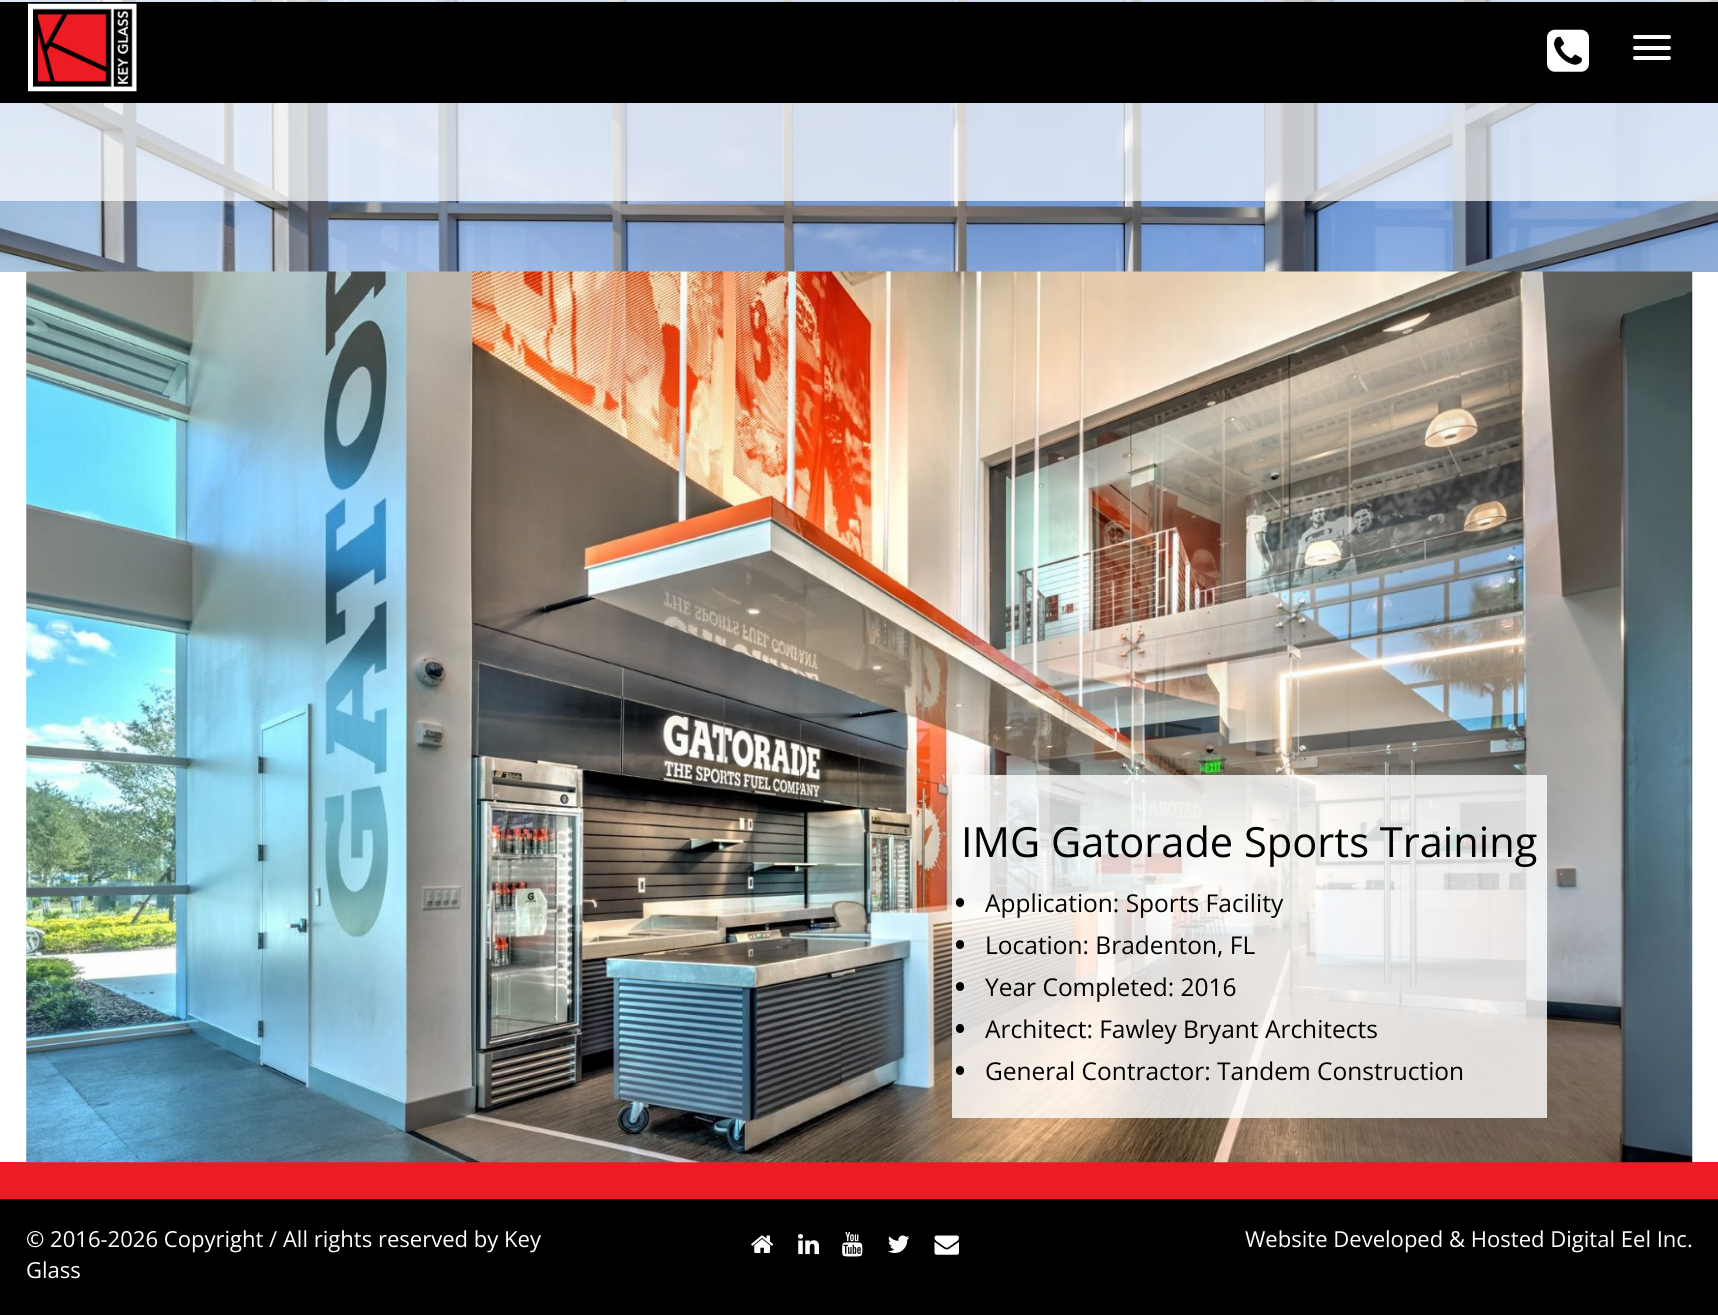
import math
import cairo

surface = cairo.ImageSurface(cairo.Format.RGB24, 1718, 1315)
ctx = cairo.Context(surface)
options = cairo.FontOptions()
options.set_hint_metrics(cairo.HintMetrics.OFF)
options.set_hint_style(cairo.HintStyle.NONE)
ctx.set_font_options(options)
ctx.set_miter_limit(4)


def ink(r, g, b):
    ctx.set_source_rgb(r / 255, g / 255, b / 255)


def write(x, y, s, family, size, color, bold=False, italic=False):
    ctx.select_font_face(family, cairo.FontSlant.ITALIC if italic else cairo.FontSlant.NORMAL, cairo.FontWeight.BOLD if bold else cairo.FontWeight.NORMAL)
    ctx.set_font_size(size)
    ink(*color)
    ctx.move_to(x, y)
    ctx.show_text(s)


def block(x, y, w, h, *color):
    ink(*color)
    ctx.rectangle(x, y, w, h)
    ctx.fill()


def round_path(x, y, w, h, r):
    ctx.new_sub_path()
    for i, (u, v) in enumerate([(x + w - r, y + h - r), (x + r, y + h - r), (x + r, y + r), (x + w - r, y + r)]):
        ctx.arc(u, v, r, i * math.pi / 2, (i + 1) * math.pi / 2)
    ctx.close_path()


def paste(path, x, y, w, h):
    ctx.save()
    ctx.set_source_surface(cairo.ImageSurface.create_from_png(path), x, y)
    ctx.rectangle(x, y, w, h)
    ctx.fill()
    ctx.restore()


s1 = dict(family="Open Sans", size=41.6, color=(0, 0, 0))
s2 = dict(family="Open Sans", size=24.5, color=(0, 0, 0))
s3 = dict(family="Open Sans", size=22.05, color=(255, 255, 255))

ink(255, 255, 255)
ctx.paint()
paste("pic1.png", 0, 0, 1718, 272)
ctx.set_source_rgba(1, 1, 1, 0.7)
ctx.rectangle(0, 0, 1718, 201)
ctx.fill()
block(0, 2, 1718, 101, 0, 0, 0)
paste("pic2.png", 28, 3, 109, 89)
paste("pic3.png", 1547, 29, 42, 43)
ink(255, 255, 255)
round_path(1633, 35, 38, 4, 2)
ctx.fill()
round_path(1633, 46, 38, 4, 2)
ctx.fill()
round_path(1633, 56, 38, 4, 2)
ctx.fill()
block(0, 1162, 1718, 37, 237, 27, 36)
paste("pic4.png", 26, 271, 1667, 892)
ctx.set_source_rgba(1, 1, 1, 0.8)
ctx.rectangle(952, 775, 595, 343)
ctx.fill()
write(961, 857, "IMG Gatorade Sports Training", **s1)
round_path(956, 898, 8, 9, 4)
ctx.fill()
write(985, 912, "Application: Sports Facility", **s2)
round_path(956, 940, 8, 9, 4)
ctx.fill()
write(985, 954, "Location: Bradenton, FL", **s2)
round_path(956, 982, 8, 9, 4)
ctx.fill()
write(985, 996, "Year Completed: 2016", **s2)
round_path(956, 1024, 8, 9, 4)
ctx.fill()
write(985, 1038, "Architect: Fawley Bryant Architects", **s2)
round_path(956, 1066, 8, 9, 4)
ctx.fill()
write(985, 1080, "General Contractor: Tandem Construction", **s2)
block(0, 1199, 1718, 116, 0, 0, 0)
write(26, 1247, "© 2016-2026 Copyright / All rights reserved by Key", **s3)
write(26, 1278, "Glass", **s3)
paste("pic5.png", 751, 1235, 23, 18)
paste("pic6.png", 798, 1234, 21, 21)
paste("pic7.png", 842, 1232, 21, 25)
paste("pic8.png", 888, 1235, 22, 18)
paste("pic9.png", 934, 1235, 25, 20)
write(1245, 1247, "Website Developed & Hosted Digital Eel Inc.", **s3)
surface.write_to_png("screenshot.png")
